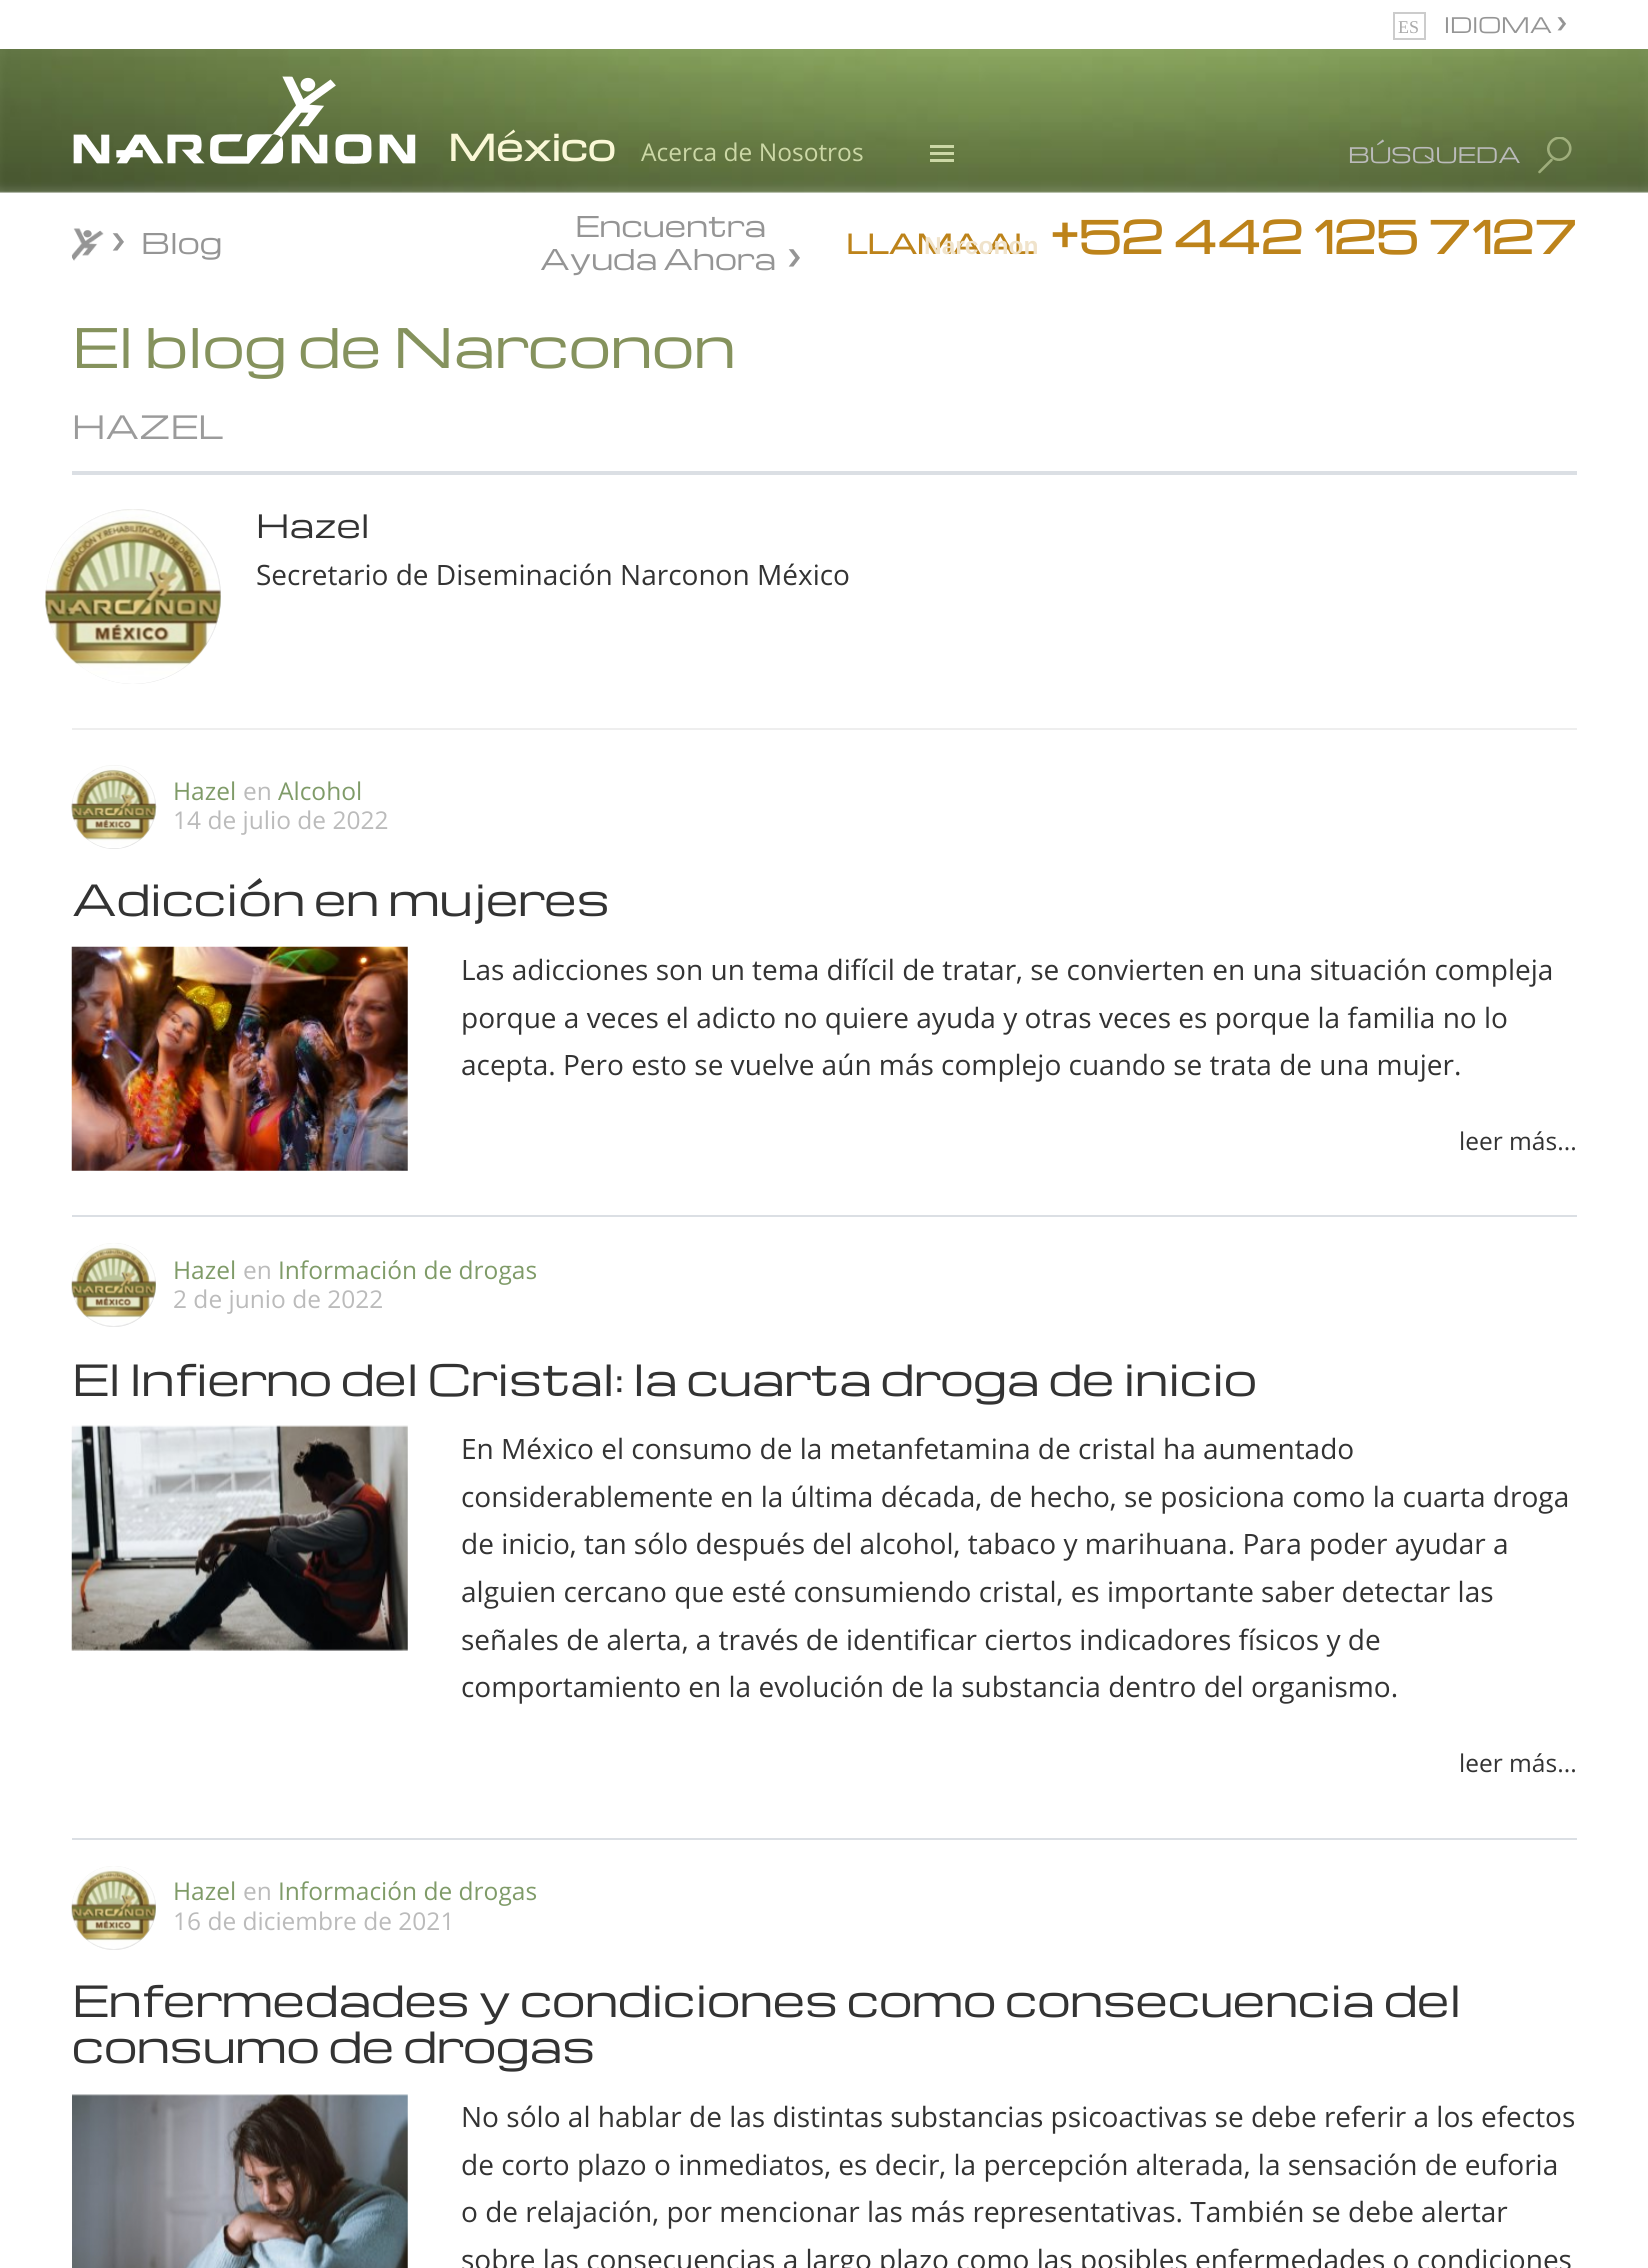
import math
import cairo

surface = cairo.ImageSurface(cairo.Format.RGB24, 1648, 2268)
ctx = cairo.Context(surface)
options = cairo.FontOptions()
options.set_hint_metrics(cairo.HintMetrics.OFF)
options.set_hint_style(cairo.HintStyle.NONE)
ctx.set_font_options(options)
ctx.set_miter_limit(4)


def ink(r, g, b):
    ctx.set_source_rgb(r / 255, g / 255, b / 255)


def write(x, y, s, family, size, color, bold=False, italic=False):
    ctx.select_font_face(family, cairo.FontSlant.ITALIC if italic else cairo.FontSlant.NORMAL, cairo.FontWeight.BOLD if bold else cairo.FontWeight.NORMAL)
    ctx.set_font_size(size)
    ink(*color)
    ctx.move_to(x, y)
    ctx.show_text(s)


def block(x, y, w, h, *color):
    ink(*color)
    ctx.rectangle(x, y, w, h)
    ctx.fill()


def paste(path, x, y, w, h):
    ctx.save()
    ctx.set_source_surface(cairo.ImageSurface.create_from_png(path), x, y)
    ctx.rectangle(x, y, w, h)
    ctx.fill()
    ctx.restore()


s1 = dict(family="Liberation Serif", size=18, color=(170, 170, 170))
s2 = dict(family="Michroma", size=21, color=(149, 149, 149))
s3 = dict(family="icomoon", size=19, color=(149, 149, 149))
s4 = dict(family="Michroma", size=35, color=(250, 248, 214), bold=True)
s5 = dict(family="Open Sans", size=24.5, color=(204, 216, 166))
s6 = dict(family="Michroma", size=21, color=(187, 187, 187))
s7 = dict(family="Michroma", size=26.25, color=(189, 131, 26), bold=True)
s8 = dict(family="Liberation Sans", size=24.5, color=(240, 227, 203), bold=True)
s9 = dict(family="icomoon", size=25, color=(149, 149, 149))
s10 = dict(family="Michroma", size=28, color=(149, 149, 149))
s11 = dict(family="Michroma", size=43.75, color=(189, 131, 26), bold=True)
s12 = dict(family="Michroma", size=53.25, color=(133, 146, 93))
s13 = dict(family="Michroma", size=31.5, color=(155, 155, 155))
s14 = dict(family="Michroma", size=31.5, color=(51, 51, 51))
s15 = dict(family="Open Sans", size=28, color=(51, 51, 51))
s16 = dict(family="Open Sans", size=24.5, color=(127, 155, 104))
s17 = dict(family="Open Sans", size=24.5, color=(187, 187, 187))
s18 = dict(family="Michroma", size=42, color=(51, 51, 51))
s19 = dict(family="Open Sans", size=24.5, color=(51, 51, 51))

ink(255, 255, 255)
ctx.paint()
paste("pic1.png", 0, 49, 1648, 144)
ctx.rectangle(1394, 13, 31, 26)
ink(204, 204, 204)
ctx.stroke()
write(1398, 33, "ES", **s1)
write(1444, 33, "IDIOMA", **s2)
write(1557, 33, "❯", **s3)
paste("pic2.png", 73, 76, 343, 88)
write(448, 161, "México", **s4)
write(641, 161, "Acerca de Nosotros", **s5)
write(1348, 163, "BÚSQUEDA", **s6)
ctx.save()
ctx.rectangle(1537, 137, 35, 35)
ctx.clip()
ctx.new_path()
ctx.move_to(1551.5, 156.5)
ctx.curve_to(1541.5, 146, 1557, 131, 1567, 141)
ctx.curve_to(1577, 151, 1562, 166.5, 1551.5, 156.5)
ctx.set_source_rgba(0.8, 0.847, 0.651, 0.6)
ctx.set_line_width(2.6)
ctx.set_line_cap(cairo.LineCap.ROUND)
ctx.stroke()
ctx.restore()
ctx.new_path()
ctx.move_to(1551.5, 160)
ctx.line_to(1539.5, 172)
ctx.set_source_rgba(0.8, 0.847, 0.651, 0.6)
ctx.set_line_width(2.6)
ctx.set_line_cap(cairo.LineCap.ROUND)
ctx.stroke()
block(930, 145, 24, 3, 204, 216, 166)
block(930, 152, 24, 3, 204, 216, 166)
block(930, 159, 24, 3, 204, 216, 166)
write(846, 254, "LLAMA AL", **s7)
write(924, 254, "Narconon", **s8)
paste("pic3.png", 71, 228, 33, 33)
write(112, 254, "❯", **s9)
write(141, 254, "Blog", **s10)
write(575, 237, "Encuentra", **s10)
write(540, 270, "Ayuda Ahora", **s10)
write(788, 270, "❯", **s9)
write(1050, 254, "+52 442 125 7127", **s11)
write(72, 368, "El blog de Narconon", **s12)
block(72, 471, 1505, 4, 219, 223, 228)
write(72, 439, "HAZEL", **s13)
ink(214, 214, 214)
ctx.new_path()
ctx.arc(133.5, 596.5, 87.5, 0, 2 * math.pi)
ctx.fill()
paste("pic4.png", 45, 509, 176, 175)
write(256, 538, "Hazel", **s14)
write(256, 585, "Secretario de Diseminación Narconon México", **s15)
block(72, 728, 1505, 2, 238, 238, 238)
block(72, 1215, 1505, 2, 219, 223, 228)
ink(214, 214, 214)
ctx.new_path()
ctx.arc(114, 807, 42, 0, 2 * math.pi)
ctx.fill()
paste("pic5.png", 71, 765, 86, 84)
write(173, 800, "Hazel", **s16)
write(243, 800, "en", **s17)
write(278, 800, "Alcohol", **s16)
write(173, 829, "14 de julio de 2022", **s17)
write(72, 916, "Adicción en mujeres", **s18)
paste("pic6.png", 71, 946, 337, 225)
write(461, 980, "Las adicciones son un tema difícil de tratar, se convierten en una situación compleja", **s15)
write(461, 1028, "porque a veces el adicto no quiere ayuda y otras veces es porque la familia no lo", **s15)
write(461, 1075, "acepta. Pero esto se vuelve aún más complejo cuando se trata de una mujer.", **s15)
write(1459, 1150, "leer más...", **s19)
block(72, 1838, 1505, 2, 219, 223, 228)
ink(214, 214, 214)
ctx.new_path()
ctx.arc(114, 1285, 42, 0, 2 * math.pi)
ctx.fill()
paste("pic7.png", 71, 1243, 85, 84)
write(173, 1279, "Hazel", **s16)
write(243, 1279, "en", **s17)
write(278, 1279, "Información de drogas", **s16)
write(173, 1308, "2 de junio de 2022", **s17)
write(72, 1396, "El Infierno del Cristal: la cuarta droga de inicio", **s18)
paste("pic8.png", 71, 1425, 337, 226)
write(461, 1459, "En México el consumo de la metanfetamina de cristal ha aumentado", **s15)
write(461, 1507, "considerablemente en la última década, de hecho, se posiciona como la cuarta droga", **s15)
write(461, 1554, "de inicio, tan sólo después del alcohol, tabaco y marihuana. Para poder ayudar a", **s15)
write(461, 1602, "alguien cercano que esté consumiendo cristal, es importante saber detectar las", **s15)
write(461, 1650, "señales de alerta, a través de identificar ciertos indicadores físicos y de", **s15)
write(461, 1697, "comportamiento en la evolución de la substancia dentro del organismo.", **s15)
write(1459, 1772, "leer más...", **s19)
ink(214, 214, 214)
ctx.new_path()
ctx.arc(114, 1908, 42, 0, 2 * math.pi)
ctx.fill()
paste("pic7.png", 71, 1866, 85, 84)
write(173, 1900, "Hazel", **s16)
write(243, 1900, "en", **s17)
write(278, 1900, "Información de drogas", **s16)
write(173, 1930, "16 de diciembre de 2021", **s17)
write(72, 2017, "Enfermedades y condiciones como consecuencia del", **s18)
write(72, 2063, "consumo de drogas", **s18)
paste("pic9.png", 72, 2094, 336, 174)
write(461, 2127, "No sólo al hablar de las distintas substancias psicoactivas se debe referir a los efectos", **s15)
write(461, 2175, "de corto plazo o inmediatos, es decir, la percepción alterada, la sensación de euforia", **s15)
write(461, 2222, "o de relajación, por mencionar las más representativas. También se debe alertar", **s15)
write(461, 2270, "sobre las consecuencias a largo plazo como las posibles enfermedades o condiciones", **s15)
surface.write_to_png("screenshot.png")
